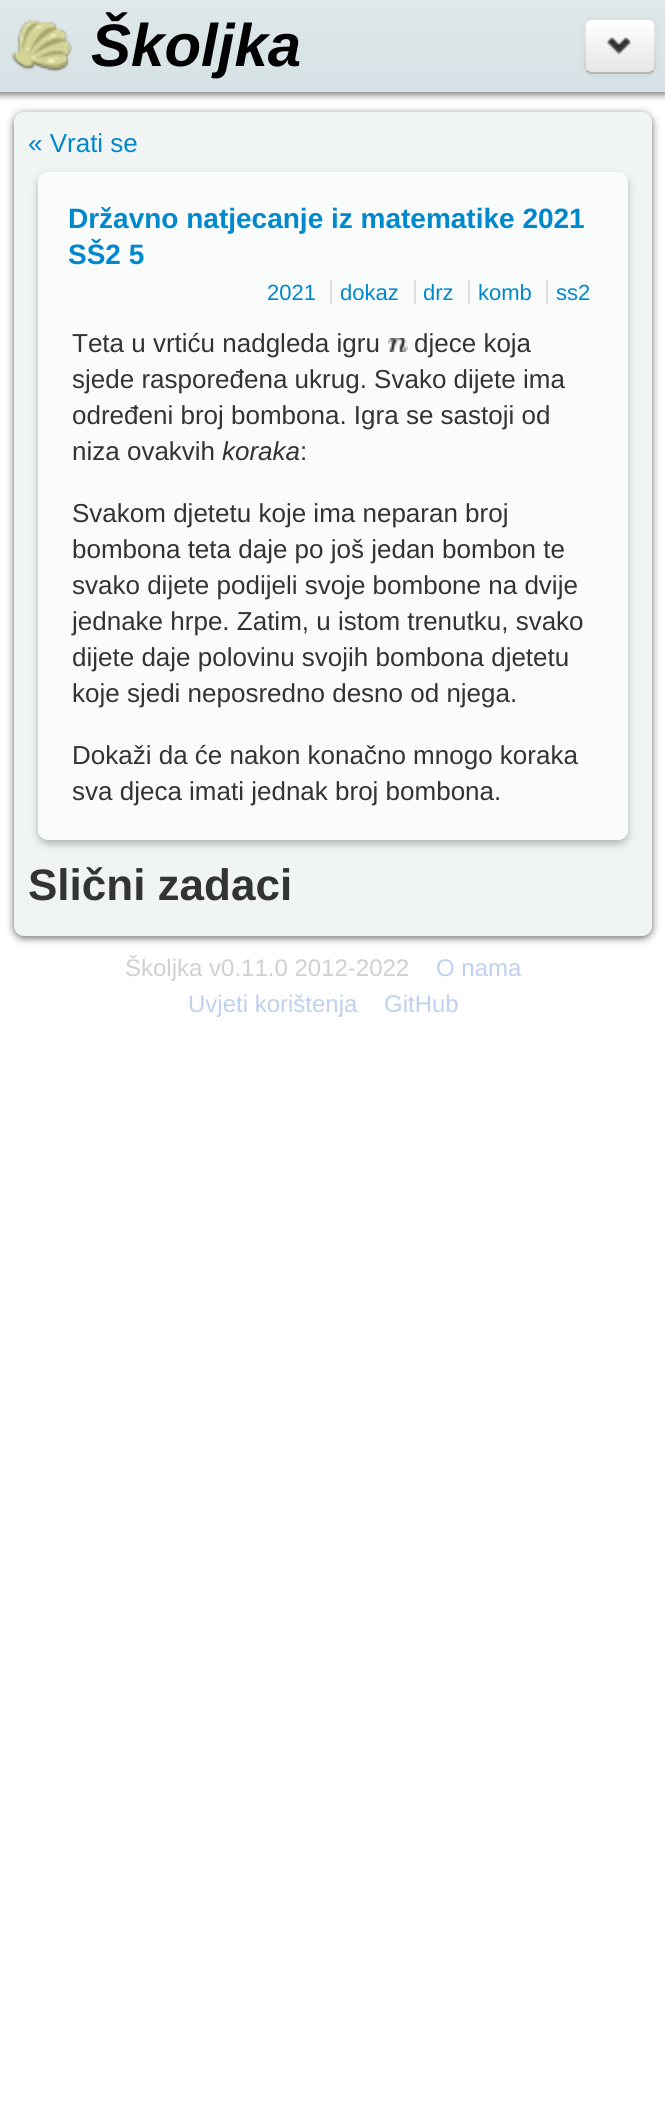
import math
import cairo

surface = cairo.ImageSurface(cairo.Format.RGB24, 665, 2121)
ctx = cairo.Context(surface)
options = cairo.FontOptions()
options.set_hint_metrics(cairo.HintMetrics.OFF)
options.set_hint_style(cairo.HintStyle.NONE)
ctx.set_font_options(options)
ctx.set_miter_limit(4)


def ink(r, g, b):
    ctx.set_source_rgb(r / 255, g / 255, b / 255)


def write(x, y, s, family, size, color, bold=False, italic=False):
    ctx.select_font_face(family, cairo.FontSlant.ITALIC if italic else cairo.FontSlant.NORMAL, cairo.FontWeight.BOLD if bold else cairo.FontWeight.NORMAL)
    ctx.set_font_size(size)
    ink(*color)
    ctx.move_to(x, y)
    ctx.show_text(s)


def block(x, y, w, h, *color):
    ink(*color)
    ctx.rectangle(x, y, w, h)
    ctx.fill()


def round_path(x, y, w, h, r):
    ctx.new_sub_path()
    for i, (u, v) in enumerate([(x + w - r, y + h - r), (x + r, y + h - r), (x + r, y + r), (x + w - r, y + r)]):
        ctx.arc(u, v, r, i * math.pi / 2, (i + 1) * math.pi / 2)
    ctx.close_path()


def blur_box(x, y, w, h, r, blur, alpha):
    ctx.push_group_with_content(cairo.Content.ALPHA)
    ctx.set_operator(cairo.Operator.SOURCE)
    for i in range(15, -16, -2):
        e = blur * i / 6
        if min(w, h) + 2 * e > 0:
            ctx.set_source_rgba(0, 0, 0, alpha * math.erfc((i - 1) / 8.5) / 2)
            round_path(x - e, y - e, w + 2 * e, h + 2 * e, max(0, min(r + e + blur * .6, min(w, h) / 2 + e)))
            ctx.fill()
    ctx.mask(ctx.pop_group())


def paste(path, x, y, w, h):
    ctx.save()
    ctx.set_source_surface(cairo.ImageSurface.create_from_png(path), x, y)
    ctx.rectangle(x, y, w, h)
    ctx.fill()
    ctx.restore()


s1 = dict(family="Liberation Sans", size=60, color=(0, 0, 0), bold=True, italic=True)
s2 = dict(family="Liberation Sans", size=26, color=(0, 136, 204))
s3 = dict(family="Liberation Sans", size=28, color=(0, 136, 204), bold=True)
s4 = dict(family="Liberation Sans", size=22, color=(0, 136, 204))
s5 = dict(family="Liberation Sans", size=26, color=(51, 51, 51))
s6 = dict(family="Liberation Sans", size=26, color=(51, 51, 51), italic=True)
s7 = dict(family="Liberation Sans", size=44, color=(51, 51, 51), bold=True)
s8 = dict(family="Liberation Sans", size=24, color=(208, 208, 208))
s9 = dict(family="Liberation Sans", size=24, color=(192, 208, 240))

ink(255, 255, 255)
ctx.paint()
ink(102, 102, 102)
blur_box(-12, 2, 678, 92, 0, 4, 1)
gradient = cairo.LinearGradient(-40, 0, -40, 92)
gradient.add_color_stop_rgba(0, 0.875, 0.91, 0.922, 1)
gradient.add_color_stop_rgba(1, 0.839, 0.886, 0.898, 1)
ctx.set_source(gradient)
ctx.rectangle(0, 0, 665, 92)
ctx.fill()
paste("pic1.png", 11, 19, 62, 53)
write(91, 66, "Školjka", **s1)
ink(0, 0, 0)
blur_box(584, 20, 72, 56, 8, 2, 0.05)
ink(245, 245, 245)
round_path(584, 18, 72, 56, 8)
ctx.fill()
ctx.save()
round_path(584, 18, 72, 56, 8)
ctx.clip()
gradient = cairo.LinearGradient(620, 20, 620, 72)
gradient.add_color_stop_rgba(0, 1, 1, 1, 1)
gradient.add_color_stop_rgba(1, 0.902, 0.902, 0.902, 1)
ctx.set_source(gradient)
ctx.rectangle(584, 20, 72, 52)
ctx.fill()
ctx.restore()
ctx.new_path()
ctx.move_to(653, 71)
ctx.curve_to(651.5, 72.5, 650, 73, 648, 73)
ctx.line_to(592, 73)
ctx.curve_to(590, 73, 588.5, 72.5, 587, 71)
ctx.set_source_rgba(0, 0, 0, 0.25)
ctx.stroke()
ctx.new_path()
ctx.move_to(587, 71)
ctx.curve_to(585.5, 69.5, 585, 68, 585, 66)
ctx.line_to(585, 26)
ctx.curve_to(585, 24, 585.5, 22.5, 587, 21)
ctx.curve_to(588.5, 19.5, 590, 19, 592, 19)
ctx.line_to(648, 19)
ctx.curve_to(650, 19, 651.5, 19.5, 653, 21)
ctx.curve_to(654.5, 22.5, 655, 24, 655, 26)
ctx.line_to(655, 66)
ctx.curve_to(655, 68, 654.5, 69.5, 653, 71)
ctx.set_source_rgba(0, 0, 0, 0.1)
ctx.stroke()
paste("pic2.png", 606, 37, 25, 18)
ink(102, 102, 102)
blur_box(14, 114, 638, 824, 10, 4, 1)
ink(240, 245, 244)
round_path(14, 112, 638, 824, 10)
ctx.fill()
write(28, 152, "« Vrati se", **s2)
ink(128, 128, 128)
blur_box(38, 176, 590, 668, 10, 4, 0.55)
ink(250, 252, 252)
round_path(38, 172, 590, 668, 10)
ctx.fill()
write(68, 228, "Državno natjecanje iz matematike 2021", **s3)
write(68, 264, "SŠ2 5", **s3)
write(267, 300, "2021", **s4)
write(340, 300, "dokaz", **s4)
block(330, 280, 2, 24, 221, 221, 221)
write(423, 300, "drz", **s4)
block(414, 280, 2, 24, 221, 221, 221)
write(478, 300, "komb", **s4)
block(468, 280, 2, 24, 221, 221, 221)
write(556, 300, "ss2", **s4)
block(546, 280, 2, 24, 221, 221, 221)
write(72, 352, "Teta u vrtiću nadgleda igru", **s5)
paste("pic3.png", 388, 338, 20, 14)
write(414, 352, "djece koja", **s5)
write(72, 388, "sjede raspoređena ukrug. Svako dijete ima", **s5)
write(72, 424, "određeni broj bombona. Igra se sastoji od", **s5)
write(72, 460, "niza ovakvih", **s5)
write(222, 460, "koraka", **s6)
write(300, 460, ":", **s5)
write(72, 522, "Svakom djetetu koje ima neparan broj", **s5)
write(72, 558, "bombona teta daje po još jedan bombon te", **s5)
write(72, 594, "svako dijete podijeli svoje bombone na dvije", **s5)
write(72, 630, "jednake hrpe. Zatim, u istom trenutku, svako", **s5)
write(72, 666, "dijete daje polovinu svojih bombona djetetu", **s5)
write(72, 702, "koje sjedi neposredno desno od njega.", **s5)
write(72, 764, "Dokaži da će nakon konačno mnogo koraka", **s5)
write(72, 800, "sva djeca imati jednak broj bombona.", **s5)
write(28, 900, "Slični zadaci", **s7)
write(125, 976, "Školjka v0.11.0 2012-2022", **s8)
write(436, 976, "O nama", **s9)
write(188, 1012, "Uvjeti korištenja", **s9)
write(384, 1012, "GitHub", **s9)
surface.write_to_png("screenshot.png")
